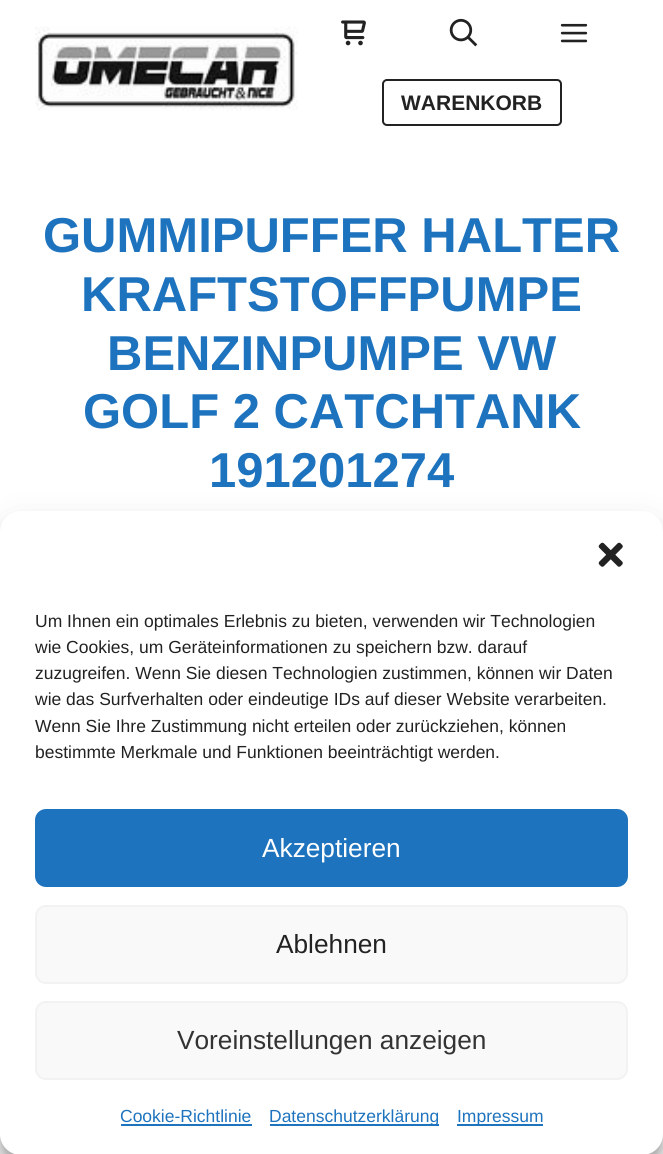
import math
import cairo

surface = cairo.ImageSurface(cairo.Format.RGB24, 663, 1154)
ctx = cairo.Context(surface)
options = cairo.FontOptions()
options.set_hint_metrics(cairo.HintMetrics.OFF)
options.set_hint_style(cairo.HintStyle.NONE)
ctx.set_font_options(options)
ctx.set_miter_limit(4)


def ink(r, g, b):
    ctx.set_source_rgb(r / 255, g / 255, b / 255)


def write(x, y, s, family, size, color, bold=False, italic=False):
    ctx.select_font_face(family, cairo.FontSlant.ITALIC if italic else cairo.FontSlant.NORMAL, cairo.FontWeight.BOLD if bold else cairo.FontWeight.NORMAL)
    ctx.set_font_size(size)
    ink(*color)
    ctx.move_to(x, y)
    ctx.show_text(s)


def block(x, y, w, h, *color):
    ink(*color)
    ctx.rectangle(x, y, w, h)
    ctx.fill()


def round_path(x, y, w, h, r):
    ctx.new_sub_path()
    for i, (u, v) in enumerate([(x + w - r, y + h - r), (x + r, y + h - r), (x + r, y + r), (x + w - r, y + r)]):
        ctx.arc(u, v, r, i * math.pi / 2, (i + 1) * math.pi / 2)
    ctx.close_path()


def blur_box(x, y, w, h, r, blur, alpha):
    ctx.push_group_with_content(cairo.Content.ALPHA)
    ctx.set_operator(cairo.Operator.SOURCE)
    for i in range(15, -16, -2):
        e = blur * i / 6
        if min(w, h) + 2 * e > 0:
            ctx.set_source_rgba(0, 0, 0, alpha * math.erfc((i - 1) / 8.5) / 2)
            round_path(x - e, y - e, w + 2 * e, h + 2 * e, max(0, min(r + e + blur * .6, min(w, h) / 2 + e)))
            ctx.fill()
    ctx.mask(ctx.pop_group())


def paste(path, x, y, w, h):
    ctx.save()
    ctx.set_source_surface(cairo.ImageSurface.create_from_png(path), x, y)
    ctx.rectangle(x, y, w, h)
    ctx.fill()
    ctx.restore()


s1 = dict(family="Liberation Sans", size=21, color=(34, 34, 34), bold=True)
s2 = dict(family="Liberation Sans", size=49, color=(30, 115, 190), bold=True)
s3 = dict(family="Liberation Sans", size=17.5, color=(34, 34, 34))
s4 = dict(family="Liberation Sans", size=26.25, color=(255, 255, 255))
s5 = dict(family="Liberation Sans", size=26.25, color=(34, 34, 34))
s6 = dict(family="Liberation Sans", size=26.25, color=(51, 51, 51))
s7 = dict(family="Liberation Sans", size=17.5, color=(30, 115, 190))

ink(255, 255, 255)
ctx.paint()
paste("pic1.png", 35, 26, 263, 85)
paste("pic2.png", 341, 20, 25, 26)
paste("pic3.png", 449, 18, 29, 29)
paste("pic4.png", 560, 23, 28, 20)
round_path(383, 80, 178, 45, 4)
ink(34, 34, 34)
ctx.stroke()
write(401, 110, "WARENKORB", **s1)
write(43, 252, "GUMMIPUFFER HALTER", **s2)
write(81, 311, "KRAFTSTOFFPUMPE", **s2)
write(107, 370, "BENZINPUMPE VW", **s2)
write(83, 428, "GOLF 2 CATCHTANK", **s2)
write(209, 487, "191201274", **s2)
ink(0, 0, 0)
blur_box(0, 522, 663, 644, 21, 5, 0.23)
blur_box(0, 529, 663, 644, 21, 17.5, 0.19)
ink(255, 255, 255)
round_path(0, 511, 663, 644, 21)
ctx.fill()
paste("pic5.png", 598, 542, 25, 25)
write(35, 627, "Um Ihnen ein optimales Erlebnis zu bieten, verwenden wir Technologien", **s3)
write(35, 653, "wie Cookies, um Geräteinformationen zu speichern bzw. darauf", **s3)
write(35, 679, "zuzugreifen. Wenn Sie diesen Technologien zustimmen, können wir Daten", **s3)
write(35, 705, "wie das Surfverhalten oder eindeutige IDs auf dieser Website verarbeiten.", **s3)
write(35, 732, "Wenn Sie Ihre Zustimmung nicht erteilen oder zurückziehen, können", **s3)
write(35, 758, "bestimmte Merkmale und Funktionen beeinträchtigt werden.", **s3)
ink(30, 115, 190)
round_path(36, 810, 591, 76, 10)
ctx.fill_preserve()
ctx.stroke()
write(262, 857, "Akzeptieren", **s4)
ink(249, 249, 249)
round_path(36, 906, 591, 77, 10)
ctx.fill_preserve()
ink(242, 242, 242)
ctx.stroke()
write(276, 953, "Ablehnen", **s5)
ink(249, 249, 249)
round_path(36, 1002, 591, 77, 10)
ctx.fill_preserve()
ink(242, 242, 242)
ctx.stroke()
write(177, 1049, "Voreinstellungen anzeigen", **s6)
write(120, 1122, "Cookie-Richtlinie", **s7)
block(121, 1124, 131, 2, 30, 115, 190)
block(270, 1124, 169, 2, 30, 115, 190)
write(269, 1122, "Datenschutzerklärung", **s7)
block(457, 1124, 86, 2, 30, 115, 190)
write(457, 1122, "Impressum", **s7)
surface.write_to_png("screenshot.png")
